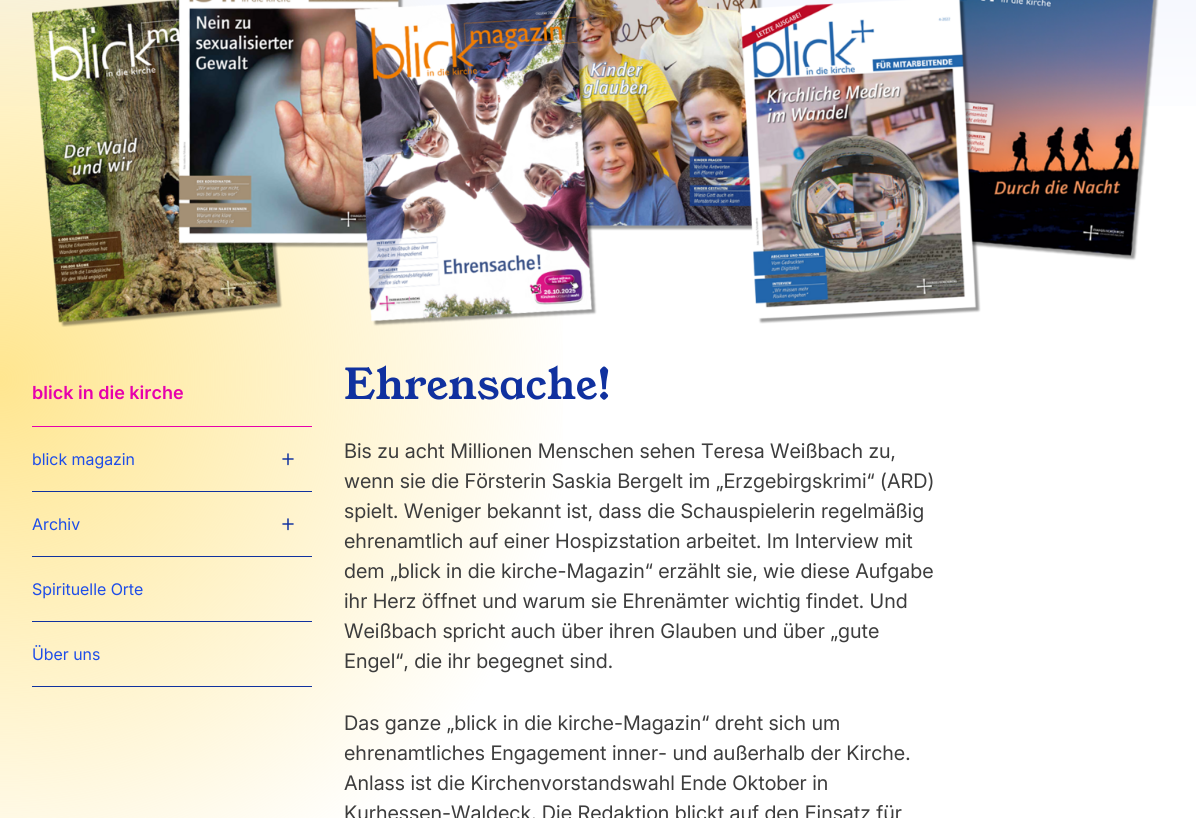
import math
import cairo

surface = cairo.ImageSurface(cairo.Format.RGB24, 1196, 818)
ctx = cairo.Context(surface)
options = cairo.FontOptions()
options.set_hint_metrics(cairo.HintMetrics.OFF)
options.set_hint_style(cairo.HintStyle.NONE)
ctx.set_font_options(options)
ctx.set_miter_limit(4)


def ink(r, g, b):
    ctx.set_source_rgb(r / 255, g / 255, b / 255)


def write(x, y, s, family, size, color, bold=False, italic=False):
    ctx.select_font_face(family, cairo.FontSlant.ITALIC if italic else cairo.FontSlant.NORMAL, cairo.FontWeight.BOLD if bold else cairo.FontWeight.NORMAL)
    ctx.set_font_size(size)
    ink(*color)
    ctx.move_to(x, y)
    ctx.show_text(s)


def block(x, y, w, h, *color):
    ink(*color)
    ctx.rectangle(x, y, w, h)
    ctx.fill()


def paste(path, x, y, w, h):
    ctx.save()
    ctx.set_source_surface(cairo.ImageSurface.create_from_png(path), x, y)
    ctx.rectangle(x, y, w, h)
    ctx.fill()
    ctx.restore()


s1 = dict(family="Inter SemiBold", size=18, color=(230, 0, 172))
s2 = dict(family="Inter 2", size=16, color=(30, 77, 232))
s3 = dict(family="Young Serif", size=42, color=(16, 49, 159))
s4 = dict(family="Inter", size=20, color=(61, 61, 61))

ink(255, 255, 255)
ctx.paint()
gradient = cairo.LinearGradient(598, -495, 598, 145)
gradient.add_color_stop_rgba(0, 0.839, 0.871, 0.984, 1)
gradient.add_color_stop_rgba(1, 1, 1, 1, 1)
ctx.set_source(gradient)
ctx.rectangle(0, 0, 1196, 106)
ctx.fill()
gradient = cairo.RadialGradient(0, 379, 0, 0, 379, 576)
gradient.add_color_stop_rgba(0, 1, 0.902, 0.565, 1)
gradient.add_color_stop_rgba(1, 1, 0.902, 0.565, 0)
ctx.set_source(gradient)
ctx.rectangle(0, 0, 563, 818)
ctx.fill()
paste("pic1.png", 32, 0, 1127, 327)
block(32, 426, 280, 1, 230, 0, 172)
write(32, 399, "blick in die kirche", **s1)
block(32, 491, 280, 1, 16, 49, 159)
write(32, 465, "blick magazin", **s2)
ctx.new_path()
ctx.move_to(288, 454)
ctx.line_to(288, 464.5)
ctx.move_to(283, 459)
ctx.line_to(293, 459)
ink(16, 49, 159)
ctx.set_line_width(1.5)
ctx.set_line_cap(cairo.LineCap.ROUND)
ctx.set_line_join(cairo.LineJoin.ROUND)
ctx.stroke()
block(32, 556, 280, 1, 16, 49, 159)
write(32, 530, "Archiv", **s2)
ctx.new_path()
ctx.move_to(288, 519)
ctx.line_to(288, 529.5)
ctx.move_to(283, 524)
ctx.line_to(293, 524)
ink(16, 49, 159)
ctx.stroke()
block(32, 621, 280, 1, 16, 49, 159)
write(32, 595, "Spirituelle Orte", **s2)
block(32, 686, 280, 1, 16, 49, 159)
write(32, 660, "Über uns", **s2)
write(344, 399, "Ehrensache!", **s3)
write(344, 458, "Bis zu acht Millionen Menschen sehen Teresa Weißbach zu,", **s4)
write(344, 488, "wenn sie die Försterin Saskia Bergelt im „Erzgebirgskrimi“ (ARD)", **s4)
write(344, 518, "spielt. Weniger bekannt ist, dass die Schauspielerin regelmäßig", **s4)
write(344, 548, "ehrenamtlich auf einer Hospizstation arbeitet. Im Interview mit", **s4)
write(344, 578, "dem „blick in die kirche-Magazin“ erzählt sie, wie diese Aufgabe", **s4)
write(344, 608, "ihr Herz öffnet und warum sie Ehrenämter wichtig findet. Und", **s4)
write(344, 638, "Weißbach spricht auch über ihren Glauben und über „gute", **s4)
write(344, 668, "Engel“, die ihr begegnet sind.", **s4)
write(344, 730, "Das ganze „blick in die kirche-Magazin“ dreht sich um", **s4)
write(344, 760, "ehrenamtliches Engagement inner- und außerhalb der Kirche.", **s4)
write(344, 790, "Anlass ist die Kirchenvorstandswahl Ende Oktober in", **s4)
write(344, 820, "Kurhessen-Waldeck. Die Redaktion blickt auf den Einsatz für", **s4)
surface.write_to_png("screenshot.png")
